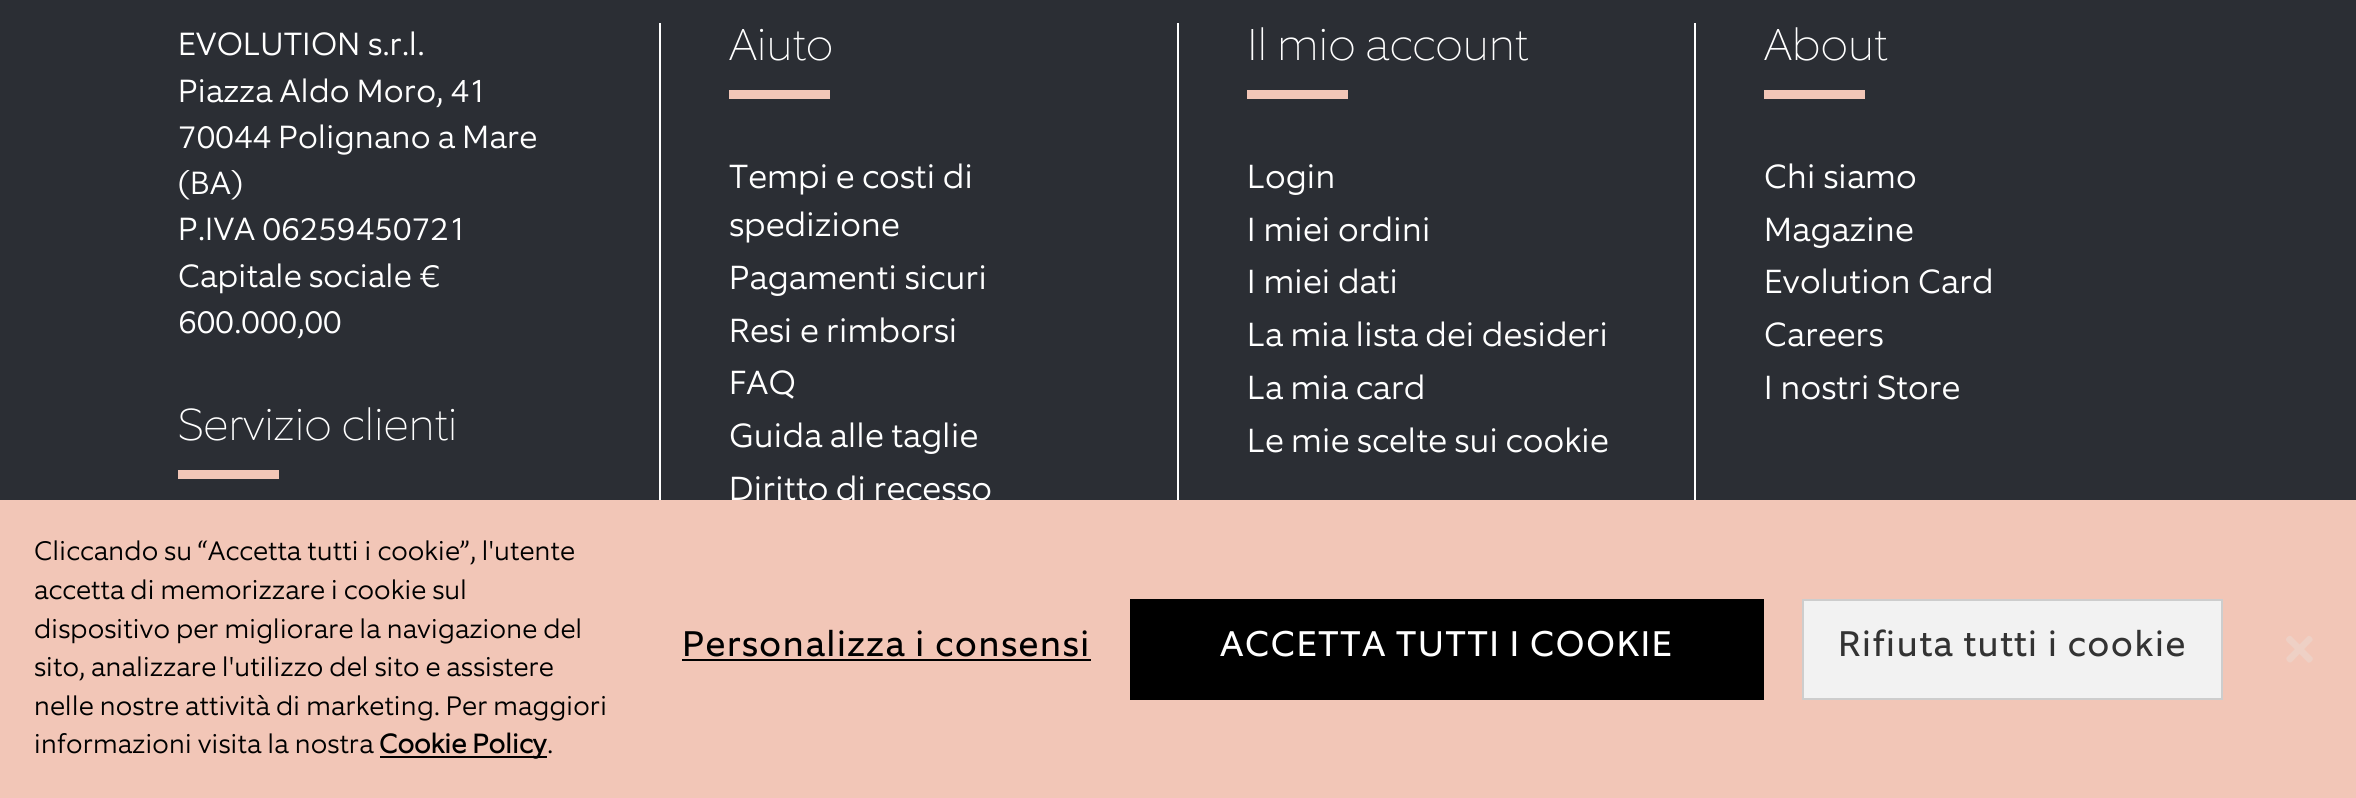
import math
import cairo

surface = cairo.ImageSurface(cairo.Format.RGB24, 2356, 798)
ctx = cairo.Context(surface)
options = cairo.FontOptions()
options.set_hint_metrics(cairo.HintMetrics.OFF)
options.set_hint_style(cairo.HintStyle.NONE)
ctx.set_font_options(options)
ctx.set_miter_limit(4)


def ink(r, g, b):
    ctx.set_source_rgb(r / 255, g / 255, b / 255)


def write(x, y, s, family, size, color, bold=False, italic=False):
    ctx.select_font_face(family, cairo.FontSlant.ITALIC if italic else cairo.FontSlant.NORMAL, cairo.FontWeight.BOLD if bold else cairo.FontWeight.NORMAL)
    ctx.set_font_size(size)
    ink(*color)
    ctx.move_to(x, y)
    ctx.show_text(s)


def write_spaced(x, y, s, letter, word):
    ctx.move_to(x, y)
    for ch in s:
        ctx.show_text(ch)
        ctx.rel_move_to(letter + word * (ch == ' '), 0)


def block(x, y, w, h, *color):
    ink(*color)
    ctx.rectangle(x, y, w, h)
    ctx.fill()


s1 = dict(family="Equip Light", size=32.4, color=(255, 255, 255))
s2 = dict(family="Equip Thin", size=45, color=(255, 255, 255))
s3 = dict(family="Equip Light", size=33.75, color=(255, 255, 255))
s4 = dict(family="Equip Light", size=27, color=(0, 0, 0))
s5 = dict(family="Equip", size=27, color=(0, 0, 0), bold=True)

ink(43, 46, 52)
ctx.paint()
block(659, 23, 2, 477, 255, 255, 255)
write(178, 55, "EVOLUTION s.r.l.", **s1)
write(178, 102, "Piazza Aldo Moro, 41", **s1)
write(178, 148, "70044 Polignano a Mare", **s1)
write(178, 194, "(BA)", **s1)
write(178, 240, "P.IVA 06259450721", **s1)
write(178, 287, "Capitale sociale €", **s1)
write(178, 333, "600.000,00", **s1)
write(178, 440, "Servizio clienti", **s2)
block(178, 470, 101, 9, 242, 198, 183)
block(1177, 23, 2, 477, 255, 255, 255)
write(729, 60, "Aiuto", **s2)
block(729, 90, 101, 9, 242, 198, 183)
write(729, 188, "Tempi e costi di", **s3)
write(729, 236, "spedizione", **s3)
write(729, 289, "Pagamenti sicuri", **s3)
write(729, 342, "Resi e rimborsi", **s3)
write(729, 394, "FAQ", **s3)
write(729, 447, "Guida alle taglie", **s3)
write(729, 500, "Diritto di recesso", **s3)
block(1694, 23, 2, 477, 255, 255, 255)
write(1247, 60, "Il mio account", **s2)
block(1247, 90, 101, 9, 242, 198, 183)
write(1247, 188, "Login", **s3)
write(1247, 241, "I miei ordini", **s3)
write(1247, 293, "I miei dati", **s3)
write(1247, 346, "La mia lista dei desideri", **s3)
write(1247, 399, "La mia card", **s3)
write(1247, 452, "Le mie scelte sui cookie", **s3)
write(1764, 60, "About", **s2)
block(1764, 90, 101, 9, 242, 198, 183)
write(1764, 188, "Chi siamo", **s3)
write(1764, 241, "Magazine", **s3)
write(1764, 293, "Evolution Card", **s3)
write(1764, 346, "Careers", **s3)
write(1764, 399, "I nostri Store", **s3)
block(0, 500, 2356, 298, 242, 198, 183)
write(34, 560, "Cliccando su “Accetta tutti i cookie”, l'utente", **s4)
write(34, 599, "accetta di memorizzare i cookie sul", **s4)
write(34, 638, "dispositivo per migliorare la navigazione del", **s4)
write(34, 676, "sito, analizzare l'utilizzo del sito e assistere", **s4)
write(34, 715, "nelle nostre attività di marketing. Per maggiori", **s4)
write(34, 753, "informazioni visita la nostra", **s4)
block(380, 756, 167, 2, 0, 0, 0)
write(379, 753, "Cookie Policy", **s5)
write(547, 753, ".", **s4)
ctx.select_font_face("Equip")
ctx.set_font_size(36)
write_spaced(682, 656, "Personalizza i consensi", 1.35, 0)
block(682, 659, 409, 2, 0, 0, 0)
block(1130, 599, 634, 101, 0, 0, 0)
ink(255, 255, 255)
write_spaced(1220, 656, "ACCETTA TUTTI I COOKIE", 1.35, 0)
ink(242, 242, 242)
ctx.rectangle(1803, 600, 419, 99)
ctx.fill_preserve()
ink(205, 205, 205)
ctx.stroke()
ink(51, 51, 51)
write_spaced(1838, 656, "Rifiuta tutti i cookie", 1.35, 0)
ink(238, 208, 197)
ctx.new_path()
ctx.move_to(2291.5, 636.5)
ctx.line_to(2312.5, 657.5)
ctx.curve_to(2314, 659.5, 2310.5, 663.5, 2308, 662.5)
ctx.line_to(2290, 644.5)
ctx.curve_to(2289.5, 644, 2286, 641.5, 2286, 639.5)
ctx.curve_to(2286, 637.5, 2289.5, 634.5, 2291.5, 636.5)
ctx.close_path()
ctx.fill()
ctx.new_path()
ctx.move_to(2287, 657)
ctx.line_to(2308, 636)
ctx.curve_to(2310, 635, 2313.5, 638.5, 2312.5, 640.5)
ctx.line_to(2295, 658.5)
ctx.curve_to(2294.5, 659, 2292, 662.5, 2290, 662.5)
ctx.curve_to(2288, 662.5, 2285, 659, 2287, 657)
ctx.close_path()
ctx.fill()
surface.write_to_png("screenshot.png")
